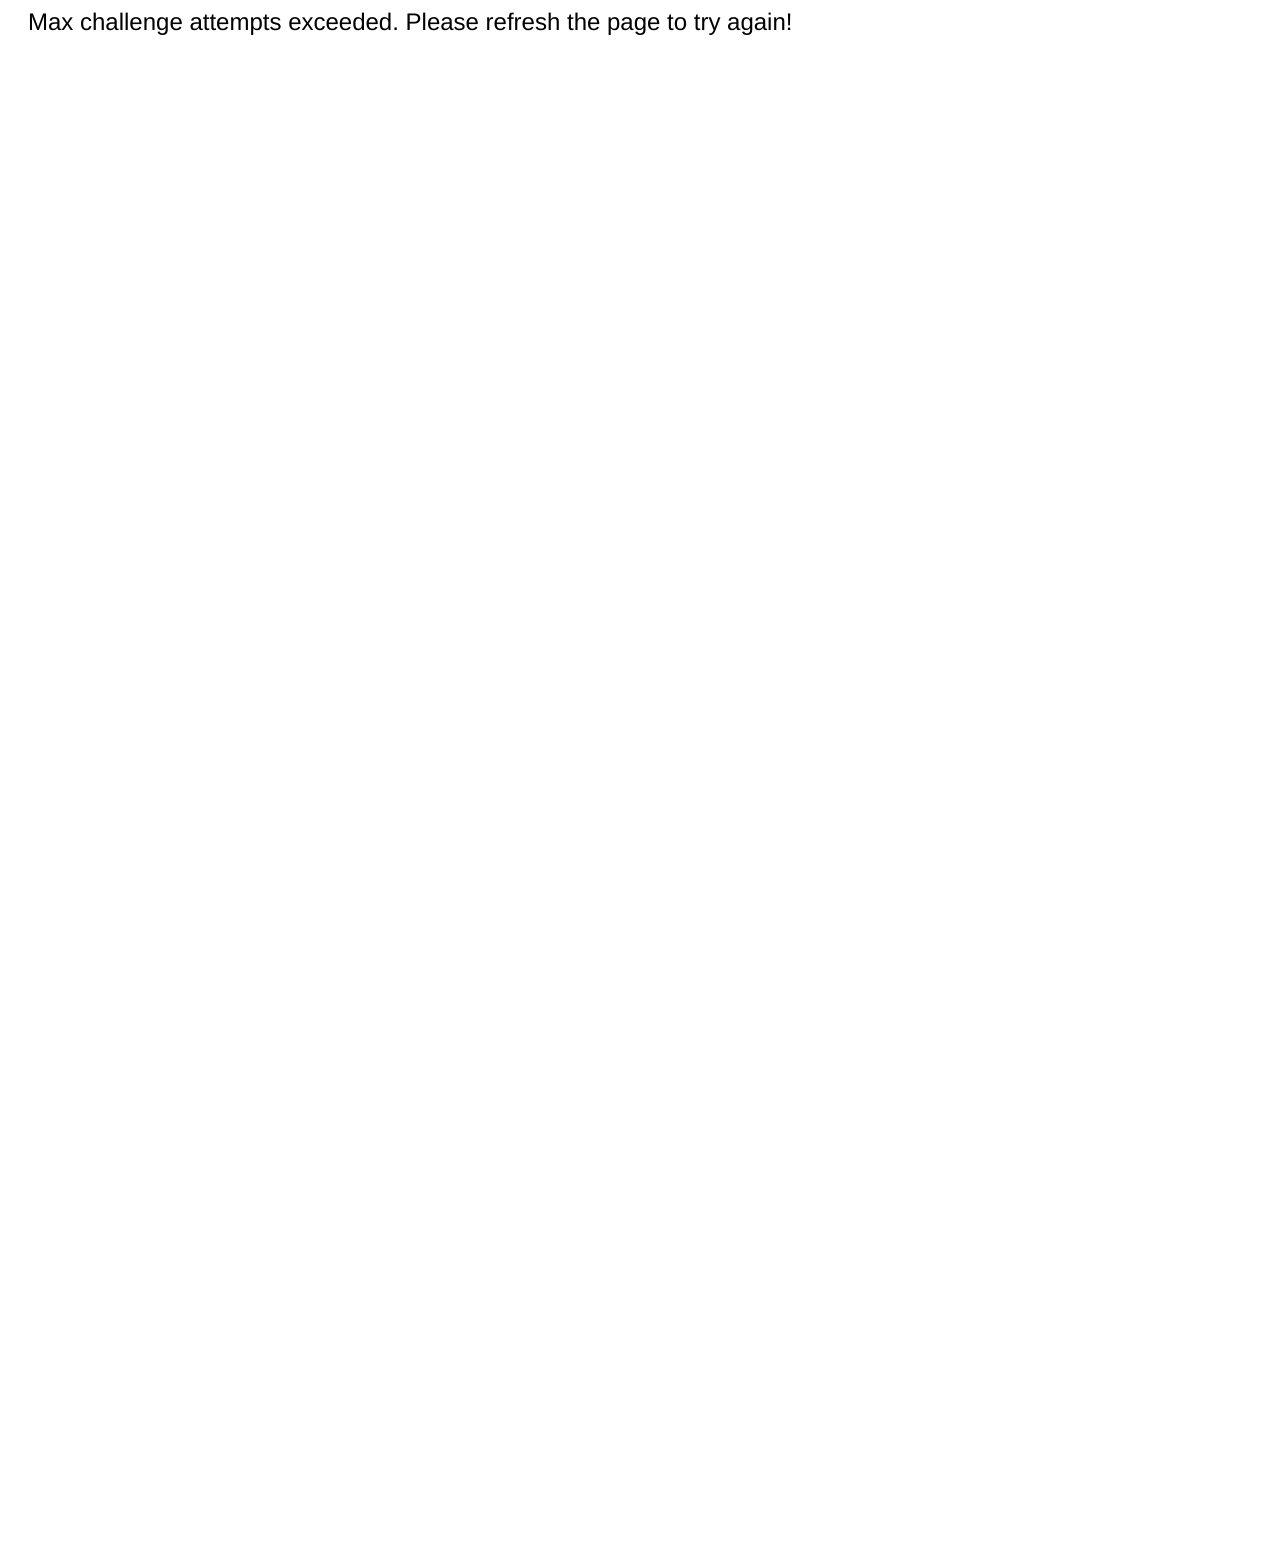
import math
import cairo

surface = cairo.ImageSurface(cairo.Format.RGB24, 1277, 1564)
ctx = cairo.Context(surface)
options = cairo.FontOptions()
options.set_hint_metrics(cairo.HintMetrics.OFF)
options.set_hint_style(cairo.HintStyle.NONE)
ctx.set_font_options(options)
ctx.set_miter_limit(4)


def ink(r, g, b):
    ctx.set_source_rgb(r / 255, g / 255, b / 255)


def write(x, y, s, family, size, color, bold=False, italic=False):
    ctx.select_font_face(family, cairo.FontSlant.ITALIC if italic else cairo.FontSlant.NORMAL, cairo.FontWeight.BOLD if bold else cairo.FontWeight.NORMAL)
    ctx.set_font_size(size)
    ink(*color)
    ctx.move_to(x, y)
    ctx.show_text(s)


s1 = dict(family="Liberation Sans", size=24, color=(0, 0, 0))

ink(255, 255, 255)
ctx.paint()
write(28, 30, "Max challenge attempts exceeded. Please refresh the page to try again!", **s1)
surface.write_to_png("screenshot.png")
